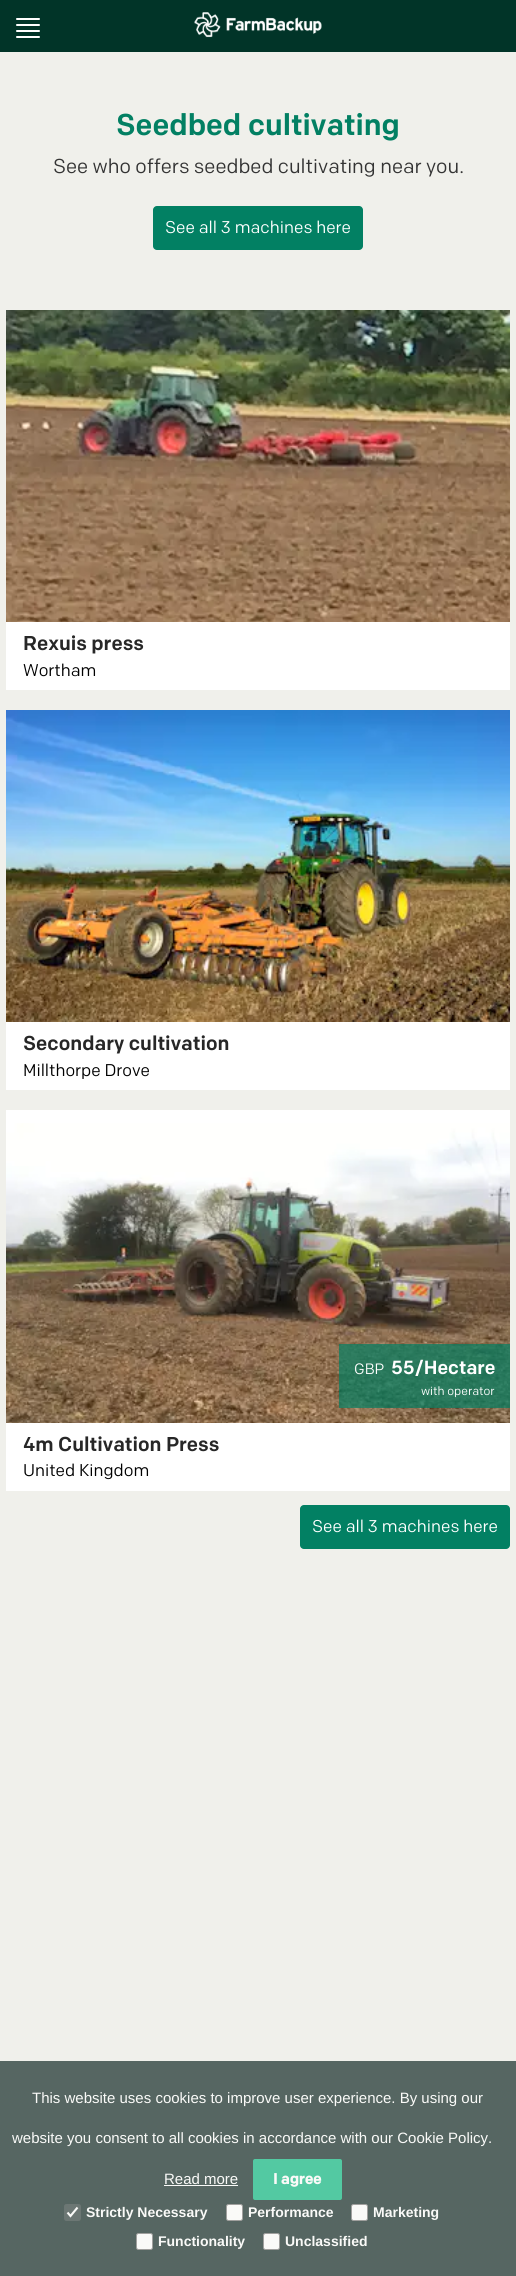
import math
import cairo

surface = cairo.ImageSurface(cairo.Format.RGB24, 516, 2276)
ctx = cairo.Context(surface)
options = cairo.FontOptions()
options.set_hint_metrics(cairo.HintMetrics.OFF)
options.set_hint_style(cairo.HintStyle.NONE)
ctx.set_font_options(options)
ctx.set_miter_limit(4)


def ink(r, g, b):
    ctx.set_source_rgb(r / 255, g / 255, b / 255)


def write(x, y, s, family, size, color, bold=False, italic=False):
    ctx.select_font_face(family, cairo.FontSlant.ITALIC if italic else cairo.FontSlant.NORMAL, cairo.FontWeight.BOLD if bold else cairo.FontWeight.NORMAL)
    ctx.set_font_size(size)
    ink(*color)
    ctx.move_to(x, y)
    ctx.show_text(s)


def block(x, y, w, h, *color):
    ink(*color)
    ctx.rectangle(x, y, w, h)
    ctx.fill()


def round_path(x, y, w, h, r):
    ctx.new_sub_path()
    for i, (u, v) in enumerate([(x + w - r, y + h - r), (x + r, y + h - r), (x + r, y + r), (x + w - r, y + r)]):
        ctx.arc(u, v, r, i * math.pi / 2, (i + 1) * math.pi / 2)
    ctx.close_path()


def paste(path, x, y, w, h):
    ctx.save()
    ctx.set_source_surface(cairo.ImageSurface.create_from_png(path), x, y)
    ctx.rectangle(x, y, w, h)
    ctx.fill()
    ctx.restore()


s1 = dict(family="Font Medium", size=30, color=(2, 128, 99))
s2 = dict(family="Font", size=20, color=(51, 51, 51))
s3 = dict(family="Font", size=17, color=(255, 255, 255))
s4 = dict(family="Font Medium", size=20, color=(39, 39, 39))
s5 = dict(family="Font", size=17, color=(0, 0, 0))
s6 = dict(family="Font", size=15, color=(255, 255, 255))
s7 = dict(family="Font Medium", size=19, color=(255, 255, 255))
s8 = dict(family="Font", size=12, color=(255, 255, 255))
s9 = dict(family="Liberation Sans", size=15, color=(250, 250, 248))
s10 = dict(family="Font", size=15, color=(250, 250, 248), bold=True)
s11 = dict(family="Liberation Sans", size=14, color=(250, 250, 248), bold=True)

ink(240, 240, 235)
ctx.paint()
block(0, 0, 516, 52, 1, 52, 40)
ink(255, 255, 255)
round_path(16, 18, 24, 2, 1)
ctx.fill()
round_path(16, 24, 24, 2, 1)
ctx.fill()
round_path(16, 30, 24, 2, 1)
ctx.fill()
round_path(16, 36, 24, 2, 1)
ctx.fill()
paste("pic1.png", 194, 12, 128, 26)
write(116, 135, "Seedbed cultivating", **s1)
write(53, 173, "See who offers seedbed cultivating near you.", **s2)
ink(2, 128, 99)
round_path(153, 206, 210, 44, 4)
ctx.fill()
write(165, 233, "See all 3 machines here", **s3)
paste("pic2.png", 6, 310, 504, 312)
block(6, 622, 504, 68, 255, 255, 255)
write(23, 650, "Rexuis press", **s4)
write(23, 676, "Wortham", **s5)
paste("pic3.png", 6, 710, 504, 312)
block(6, 1022, 504, 68, 255, 255, 255)
write(23, 1050, "Secondary cultivation", **s4)
write(23, 1076, "Millthorpe Drove", **s5)
block(6, 1110, 504, 13, 255, 255, 255)
paste("pic4.png", 6, 1123, 504, 300)
ctx.set_source_rgba(0.008, 0.502, 0.388, 0.7)
ctx.rectangle(339, 1344, 171, 64)
ctx.fill()
write(354, 1374, "GBP", **s6)
write(391, 1374, "55/Hectare", **s7)
write(421, 1395, "with operator", **s8)
block(6, 1423, 504, 68, 255, 255, 255)
write(23, 1451, "4m Cultivation Press", **s4)
write(23, 1476, "United Kingdom", **s5)
ink(2, 128, 99)
round_path(300, 1505, 210, 44, 4)
ctx.fill()
write(312, 1532, "See all 3 machines here", **s3)
block(0, 2061, 516, 215, 86, 102, 98)
write(32, 2103, "This website uses cookies to improve user experience. By using our", **s9)
write(12, 2143, "website you consent to all cookies in accordance with our Cookie Policy.", **s9)
write(164, 2184, "Read more", **s9)
block(164, 2185, 74, 1, 250, 250, 248)
ink(83, 201, 162)
round_path(253, 2159, 89, 41, 2)
ctx.fill()
write(273, 2184, "I agree", **s10)
ink(108, 119, 116)
round_path(64, 2204, 17, 17, 2.5)
ctx.fill()
ctx.new_path()
ctx.move_to(67.5, 2212.5)
ctx.line_to(70.5, 2216)
ctx.line_to(77.5, 2207.5)
ink(250, 250, 248)
ctx.set_line_width(2.1)
ctx.stroke()
write(86, 2217, "Strictly Necessary", **s11)
round_path(226.5, 2204.5, 16, 16, 2)
ctx.fill_preserve()
ink(160, 160, 158)
ctx.set_line_width(1)
ctx.stroke()
write(248, 2217, "Performance", **s11)
round_path(351.5, 2204.5, 16, 16, 2)
ctx.fill_preserve()
ink(160, 160, 158)
ctx.stroke()
write(373, 2217, "Marketing", **s11)
round_path(136.5, 2233.5, 16, 16, 2)
ctx.fill_preserve()
ink(160, 160, 158)
ctx.stroke()
write(158, 2246, "Functionality", **s11)
round_path(263.5, 2233.5, 16, 16, 2)
ctx.fill_preserve()
ink(160, 160, 158)
ctx.stroke()
write(285, 2246, "Unclassified", **s11)
surface.write_to_png("screenshot.png")
